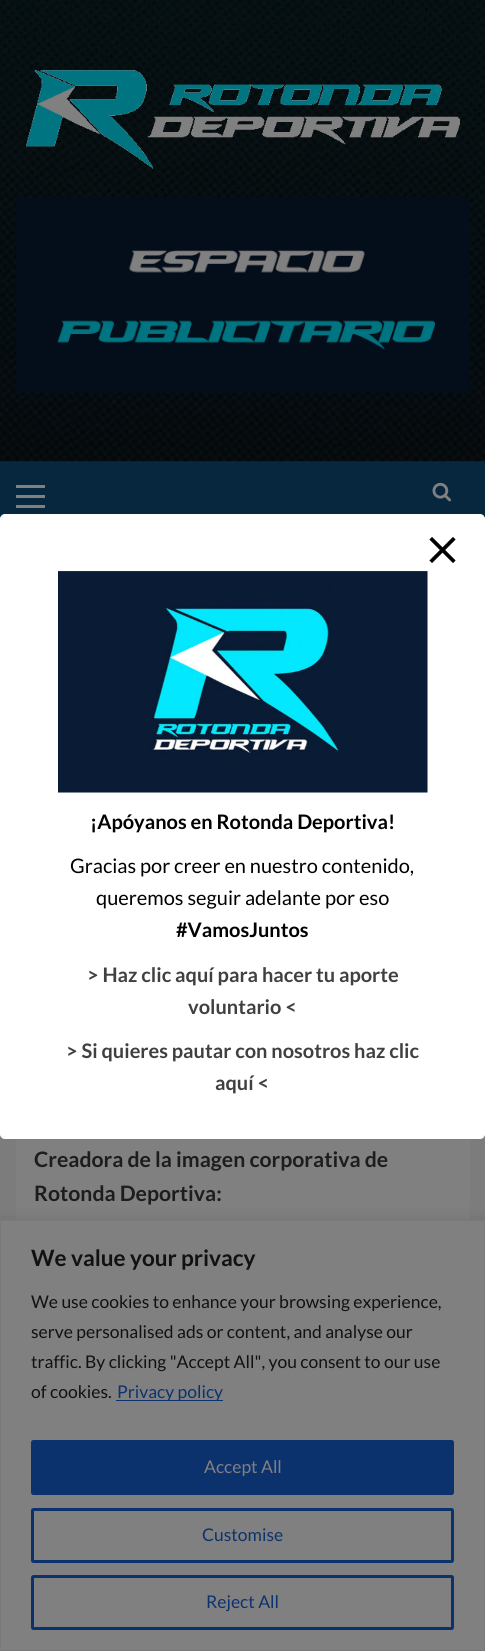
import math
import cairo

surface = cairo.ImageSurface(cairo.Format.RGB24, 485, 1651)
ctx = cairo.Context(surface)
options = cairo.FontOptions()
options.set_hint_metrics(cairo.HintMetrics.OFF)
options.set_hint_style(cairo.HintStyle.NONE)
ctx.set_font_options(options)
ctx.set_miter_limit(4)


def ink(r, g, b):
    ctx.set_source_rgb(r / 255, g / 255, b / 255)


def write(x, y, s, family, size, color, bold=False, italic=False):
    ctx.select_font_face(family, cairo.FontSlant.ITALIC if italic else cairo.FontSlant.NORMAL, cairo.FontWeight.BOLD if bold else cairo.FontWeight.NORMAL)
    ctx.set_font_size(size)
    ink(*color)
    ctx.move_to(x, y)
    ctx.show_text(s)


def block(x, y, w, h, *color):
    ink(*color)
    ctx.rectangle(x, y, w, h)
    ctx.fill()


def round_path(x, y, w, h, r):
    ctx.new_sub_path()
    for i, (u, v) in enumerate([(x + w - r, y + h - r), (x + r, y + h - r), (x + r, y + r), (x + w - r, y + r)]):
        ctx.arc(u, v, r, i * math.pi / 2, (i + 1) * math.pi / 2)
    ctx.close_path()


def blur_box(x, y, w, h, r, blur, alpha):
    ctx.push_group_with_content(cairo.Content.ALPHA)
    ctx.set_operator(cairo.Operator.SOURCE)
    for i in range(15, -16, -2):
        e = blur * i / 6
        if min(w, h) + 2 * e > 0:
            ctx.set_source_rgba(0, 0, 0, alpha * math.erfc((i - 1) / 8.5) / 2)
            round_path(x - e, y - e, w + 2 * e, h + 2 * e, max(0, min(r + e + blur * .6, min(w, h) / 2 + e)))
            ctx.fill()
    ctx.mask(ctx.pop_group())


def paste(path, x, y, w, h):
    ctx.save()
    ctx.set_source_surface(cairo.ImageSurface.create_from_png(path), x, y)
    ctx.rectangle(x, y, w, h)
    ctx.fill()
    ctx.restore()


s1 = dict(family="Lato", size=20, color=(0, 0, 0), bold=True)
s2 = dict(family="Lato", size=20, color=(0, 0, 0))
s3 = dict(family="Lato", size=20, color=(64, 64, 64), bold=True)
s4 = dict(family="Lato", size=21.25, color=(29, 29, 29), bold=True)
s5 = dict(family="Lato", size=22.5, color=(17, 17, 17), bold=True)
s6 = dict(family="Lato", size=17.5, color=(17, 17, 17))
s7 = dict(family="Lato", size=17.5, color=(12, 50, 110))
s8 = dict(family="Lato", size=17.5, color=(128, 128, 128))

ink(124, 124, 124)
ctx.paint()
block(0, 461, 485, 58, 6, 39, 62)
ink(255, 255, 255)
round_path(0.5, 514.5, 484, 624, 4.5)
ctx.fill_preserve()
ctx.set_line_width(1)
ctx.stroke()
paste("pic1.png", 429, 537, 27, 26)
paste("pic2.png", 58, 571, 370, 222)
write(90, 829, "¡Apóyanos en Rotonda Deportiva!", **s1)
write(70, 873, "Gracias por creer en nuestro contenido,", **s2)
write(96, 905, "queremos seguir adelante por eso", **s2)
write(176, 937, "#VamosJuntos", **s1)
write(87, 982, "> Haz clic aquí para hacer tu aporte", **s3)
write(188, 1014, "voluntario <", **s3)
write(66, 1058, "> Si quieres pautar con nosotros haz clic", **s3)
write(215, 1090, "aquí <", **s3)
paste("pic3.png", 0, 0, 485, 462)
paste("pic4.png", 26, 70, 434, 99)
paste("pic5.png", 16, 197, 454, 196)
block(16, 495, 29, 3, 128, 128, 128)
block(16, 485, 29, 3, 128, 128, 128)
block(16, 505, 29, 3, 128, 128, 128)
paste("pic6.png", 432, 482, 19, 20)
block(16, 1139, 454, 81, 128, 128, 128)
write(34, 1167, "Creadora de la imagen corporativa de", **s4)
write(34, 1201, "Rotonda Deportiva:", **s4)
ink(86, 86, 86)
blur_box(0, 1219, 485, 431, 0, 6, 0.3)
ink(128, 128, 128)
ctx.rectangle(0.5, 1220.5, 484, 430)
ctx.fill_preserve()
ink(122, 122, 122)
ctx.stroke()
write(31, 1266, "We value your privacy", **s5)
write(31, 1308, "We use cookies to enhance your browsing experience,", **s6)
write(31, 1338, "serve personalised ads or content, and analyse our", **s6)
write(31, 1368, "traffic. By clicking \"Accept All\", you consent to our use", **s6)
write(31, 1398, "of cookies.", **s6)
block(116, 1400, 107, 1, 12, 50, 110)
write(117, 1398, "Privacy policy", **s7)
round_path(32.5, 1441.5, 420, 52, 1)
ctx.fill_preserve()
ctx.set_line_width(3)
ctx.stroke()
write(204, 1473, "Accept All", **s8)
round_path(32.5, 1509.5, 420, 52, 1)
ink(12, 50, 110)
ctx.stroke()
write(202, 1541, "Customise", **s7)
round_path(32.5, 1576.5, 420, 52, 1)
ctx.stroke()
write(206, 1608, "Reject All", **s7)
surface.write_to_png("screenshot.png")
